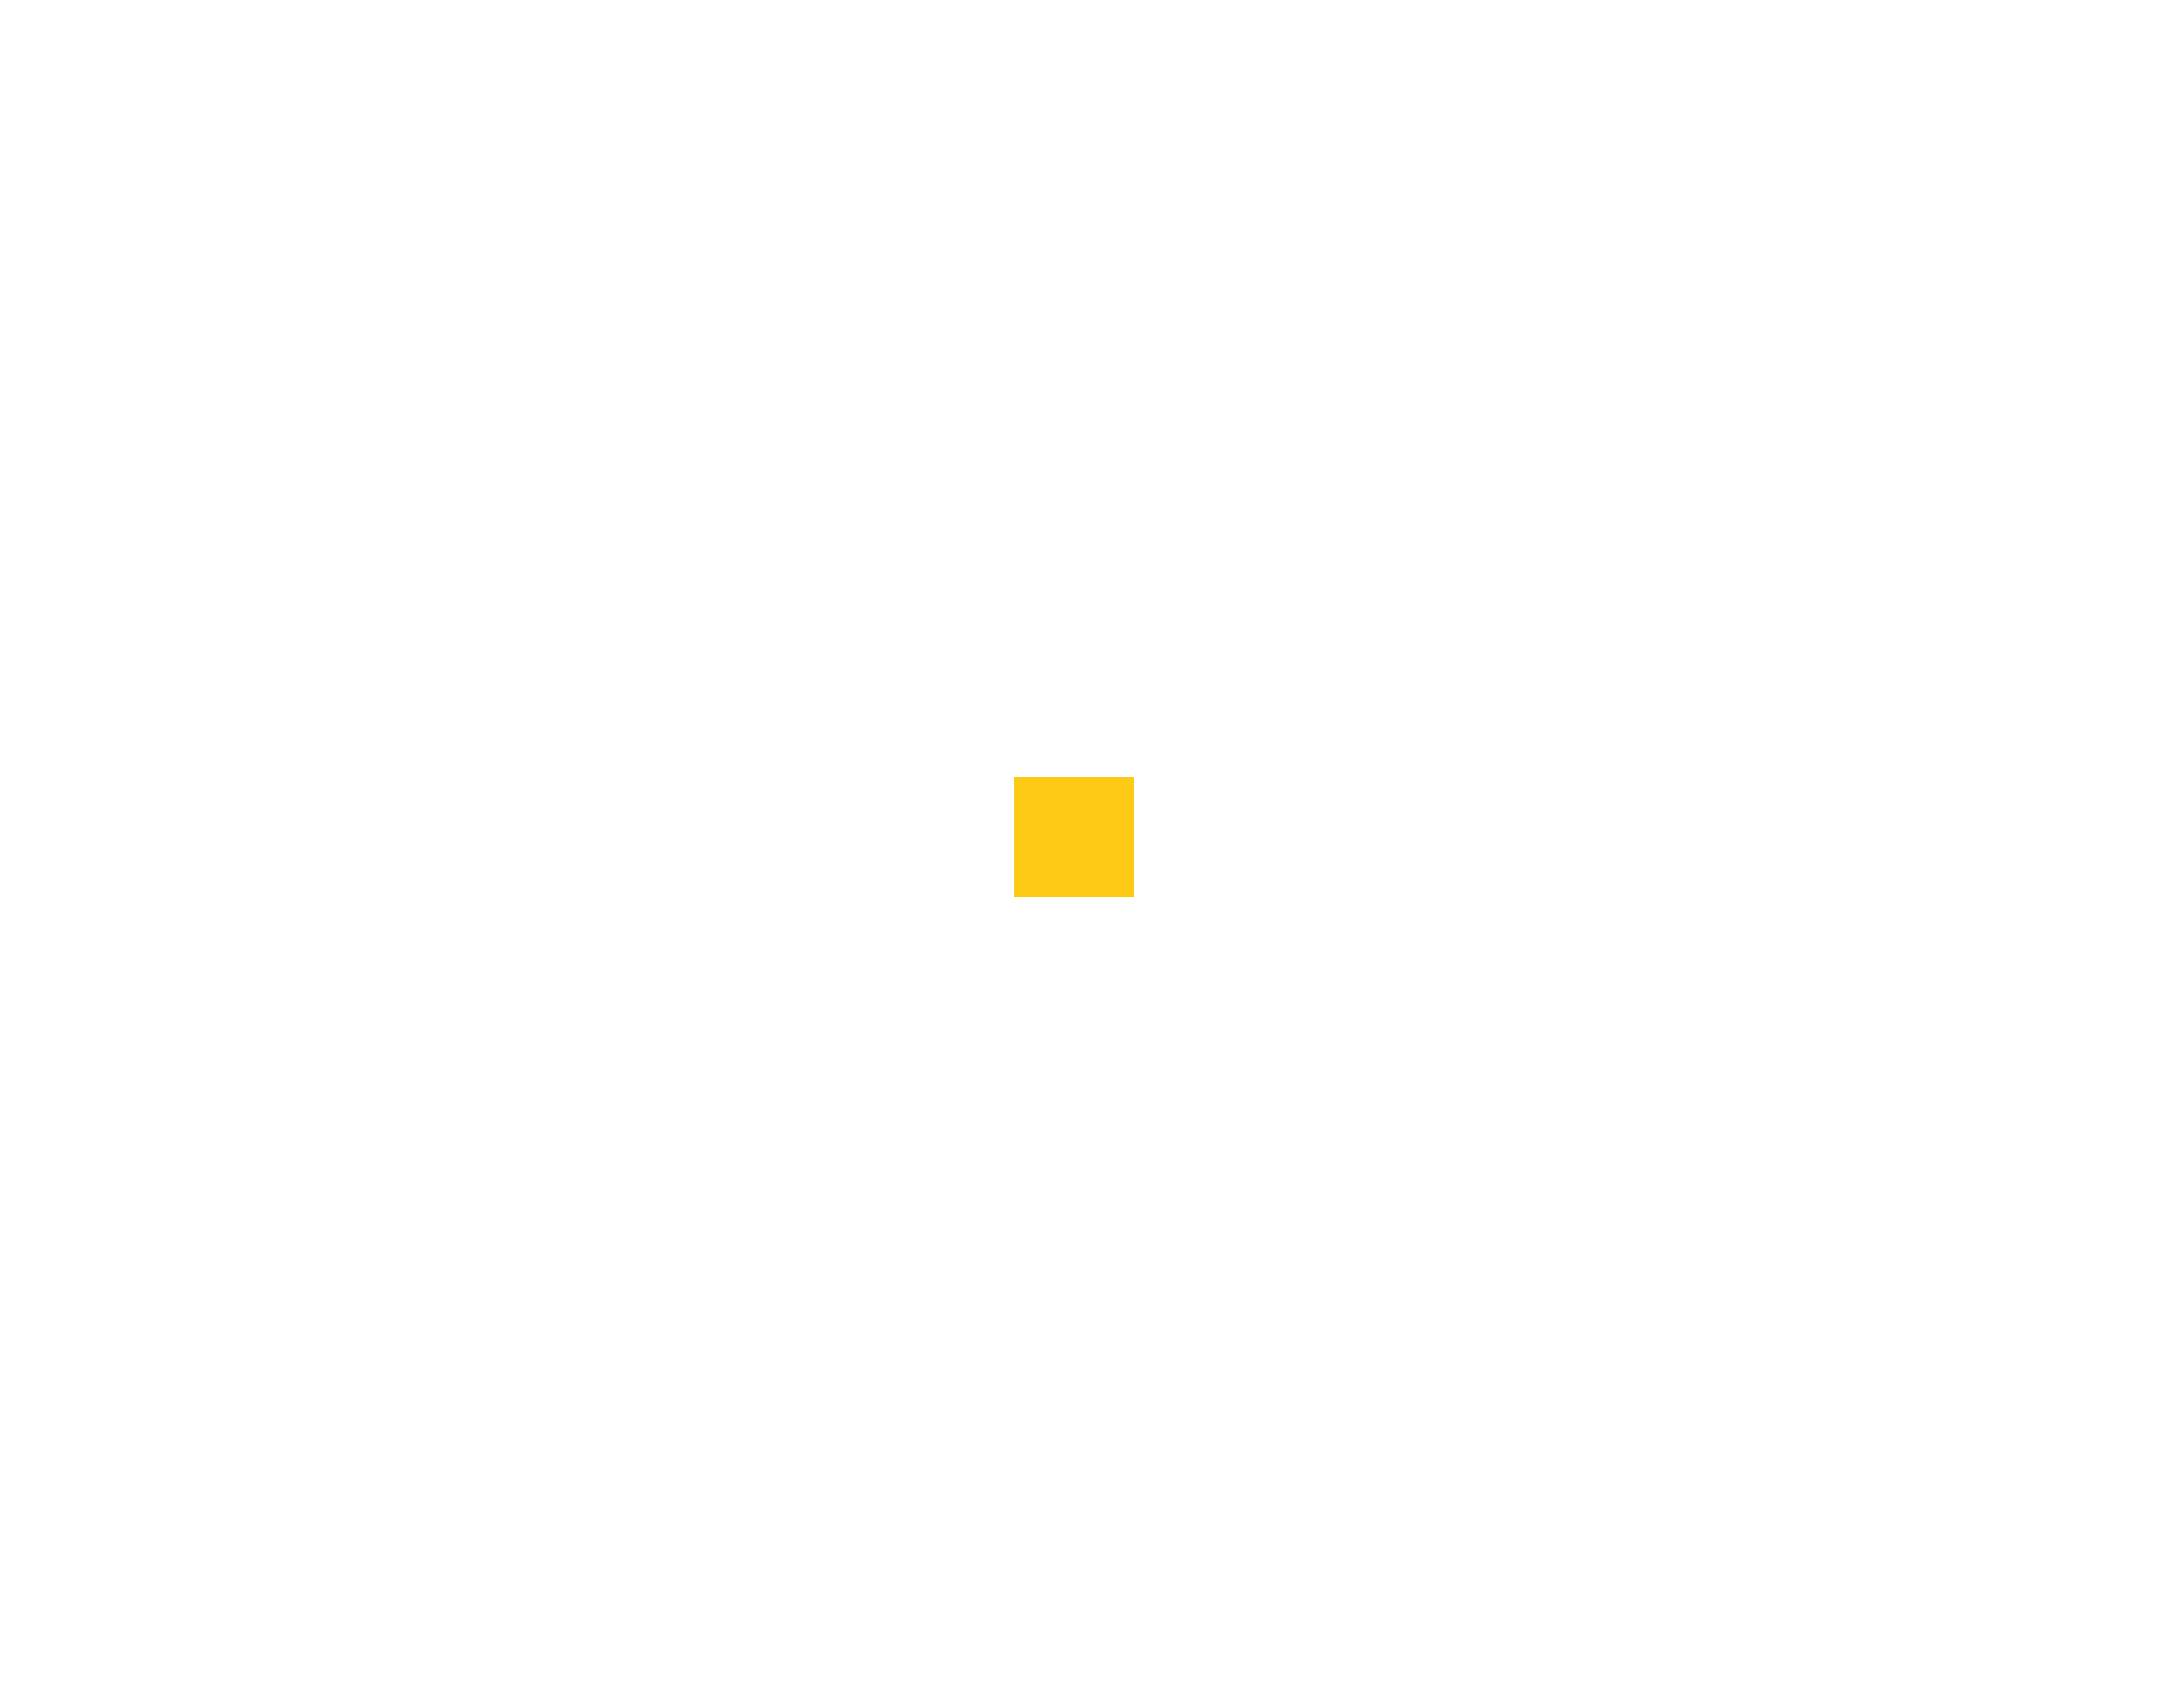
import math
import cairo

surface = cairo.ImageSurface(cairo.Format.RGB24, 2177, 1704)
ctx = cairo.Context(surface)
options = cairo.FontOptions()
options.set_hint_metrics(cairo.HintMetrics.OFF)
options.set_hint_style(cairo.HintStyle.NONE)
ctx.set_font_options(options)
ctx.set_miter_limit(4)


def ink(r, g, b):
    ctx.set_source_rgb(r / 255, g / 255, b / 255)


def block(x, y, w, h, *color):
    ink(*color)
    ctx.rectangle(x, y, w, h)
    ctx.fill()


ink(255, 255, 255)
ctx.paint()
block(1014, 777, 120, 60, 254, 202, 22)
block(1014, 837, 120, 60, 254, 202, 22)
surface.write_to_png("screenshot.png")
